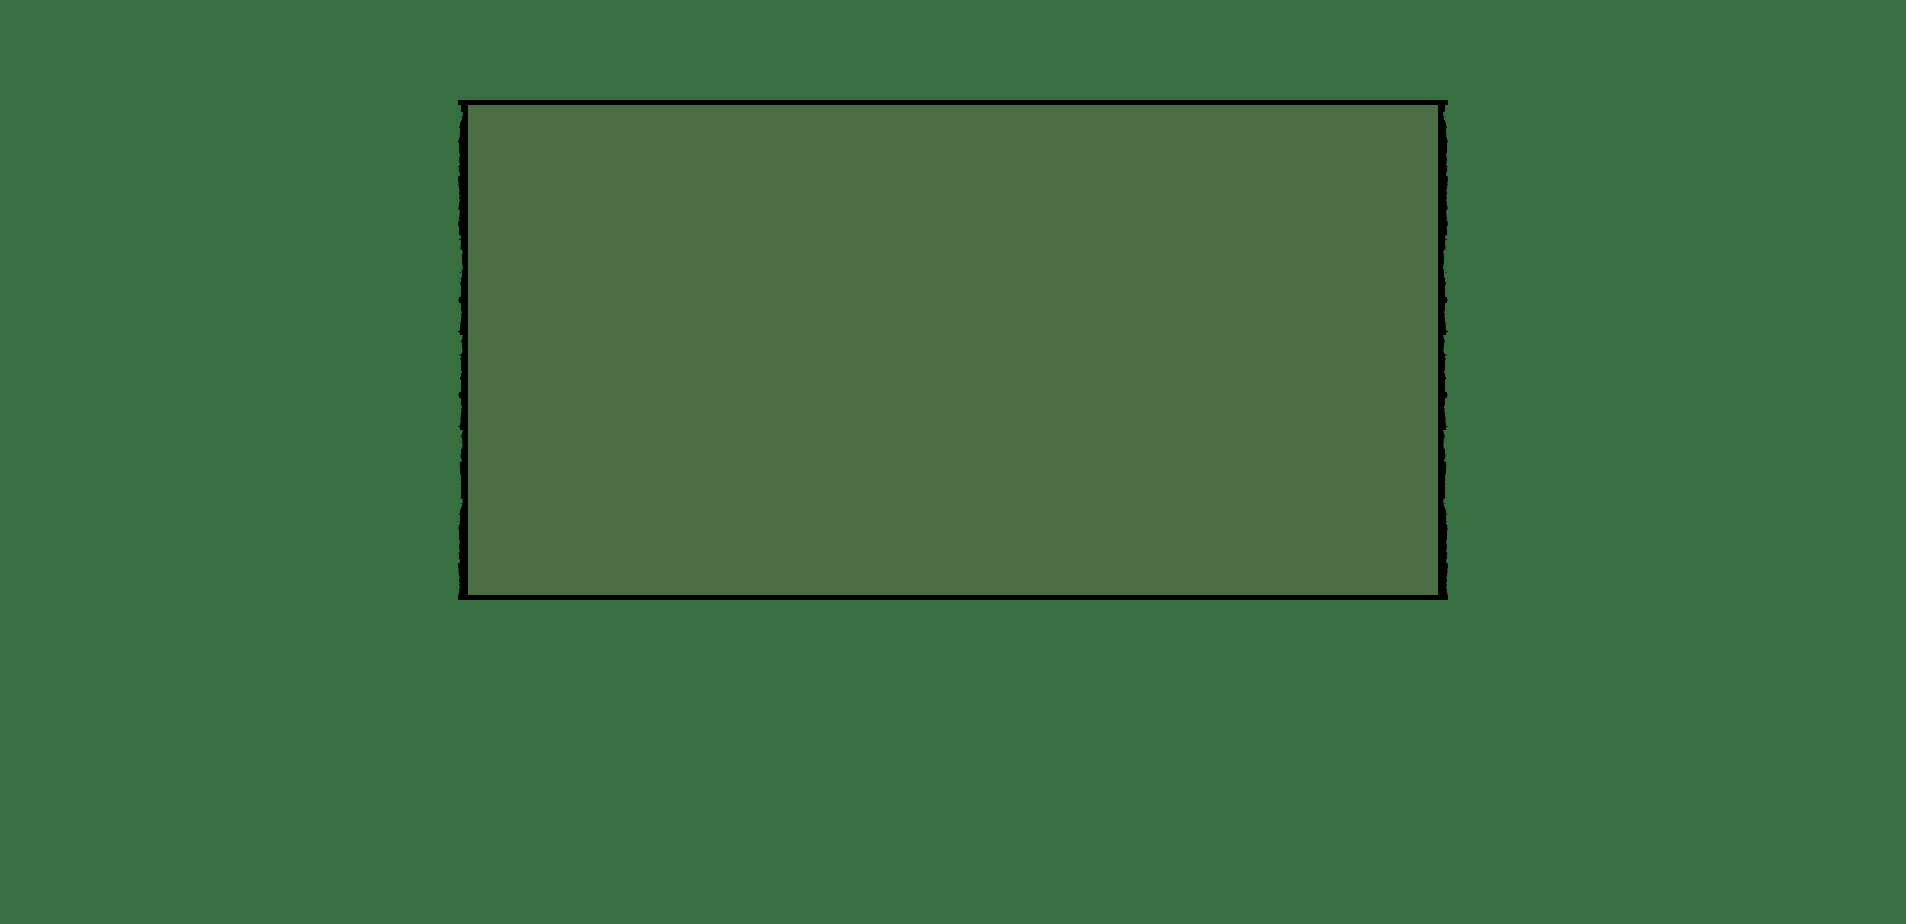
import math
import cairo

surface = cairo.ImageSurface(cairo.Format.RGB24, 1906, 924)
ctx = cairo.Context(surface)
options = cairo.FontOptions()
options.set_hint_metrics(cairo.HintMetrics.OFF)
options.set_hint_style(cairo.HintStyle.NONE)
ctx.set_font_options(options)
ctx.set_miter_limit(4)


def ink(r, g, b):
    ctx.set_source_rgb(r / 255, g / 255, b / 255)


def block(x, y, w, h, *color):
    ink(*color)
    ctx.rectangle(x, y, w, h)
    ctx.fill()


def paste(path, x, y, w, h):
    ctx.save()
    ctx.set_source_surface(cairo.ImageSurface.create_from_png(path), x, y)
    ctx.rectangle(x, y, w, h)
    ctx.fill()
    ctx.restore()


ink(55, 111, 64)
ctx.paint()
block(468, 105, 970, 490, 75, 110, 68)
paste("pic1.png", 458, 100, 990, 5)
paste("pic1.png", 458, 595, 990, 5)
paste("pic2.png", 458, 105, 10, 490)
paste("pic3.png", 1438, 105, 10, 490)
surface.write_to_png("screenshot.png")
